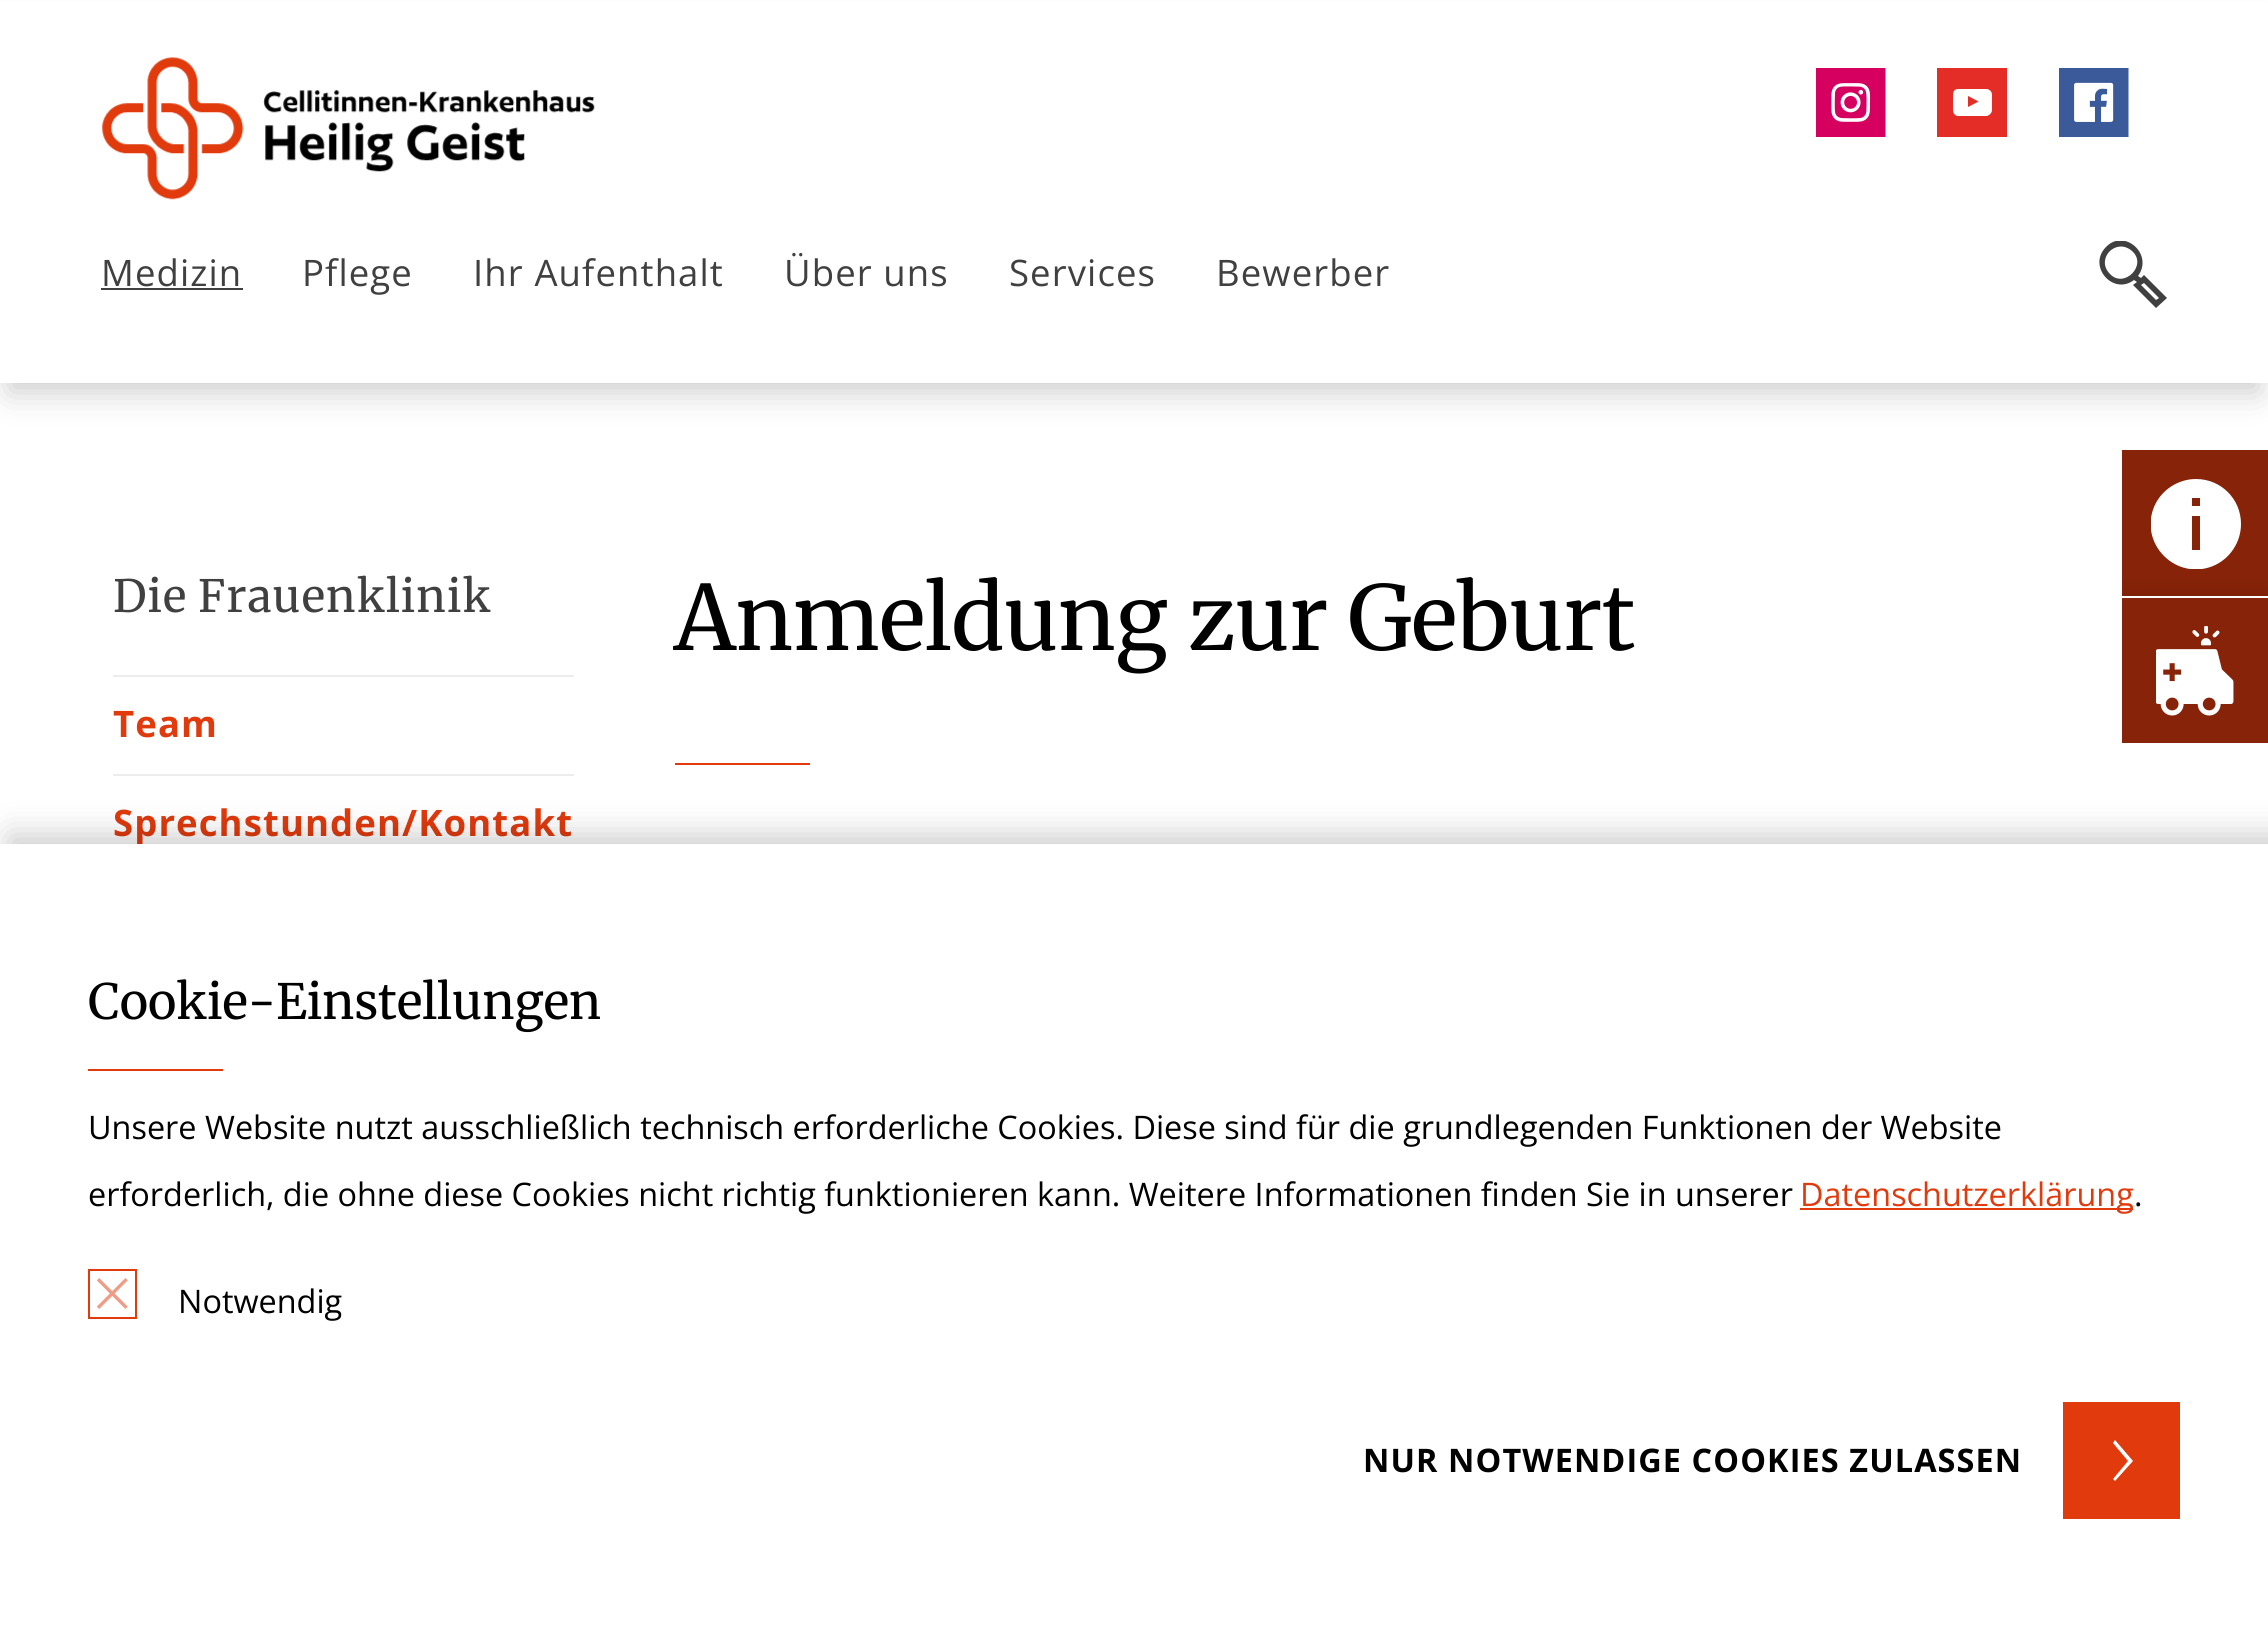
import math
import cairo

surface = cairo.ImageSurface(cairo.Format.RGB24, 2268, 1644)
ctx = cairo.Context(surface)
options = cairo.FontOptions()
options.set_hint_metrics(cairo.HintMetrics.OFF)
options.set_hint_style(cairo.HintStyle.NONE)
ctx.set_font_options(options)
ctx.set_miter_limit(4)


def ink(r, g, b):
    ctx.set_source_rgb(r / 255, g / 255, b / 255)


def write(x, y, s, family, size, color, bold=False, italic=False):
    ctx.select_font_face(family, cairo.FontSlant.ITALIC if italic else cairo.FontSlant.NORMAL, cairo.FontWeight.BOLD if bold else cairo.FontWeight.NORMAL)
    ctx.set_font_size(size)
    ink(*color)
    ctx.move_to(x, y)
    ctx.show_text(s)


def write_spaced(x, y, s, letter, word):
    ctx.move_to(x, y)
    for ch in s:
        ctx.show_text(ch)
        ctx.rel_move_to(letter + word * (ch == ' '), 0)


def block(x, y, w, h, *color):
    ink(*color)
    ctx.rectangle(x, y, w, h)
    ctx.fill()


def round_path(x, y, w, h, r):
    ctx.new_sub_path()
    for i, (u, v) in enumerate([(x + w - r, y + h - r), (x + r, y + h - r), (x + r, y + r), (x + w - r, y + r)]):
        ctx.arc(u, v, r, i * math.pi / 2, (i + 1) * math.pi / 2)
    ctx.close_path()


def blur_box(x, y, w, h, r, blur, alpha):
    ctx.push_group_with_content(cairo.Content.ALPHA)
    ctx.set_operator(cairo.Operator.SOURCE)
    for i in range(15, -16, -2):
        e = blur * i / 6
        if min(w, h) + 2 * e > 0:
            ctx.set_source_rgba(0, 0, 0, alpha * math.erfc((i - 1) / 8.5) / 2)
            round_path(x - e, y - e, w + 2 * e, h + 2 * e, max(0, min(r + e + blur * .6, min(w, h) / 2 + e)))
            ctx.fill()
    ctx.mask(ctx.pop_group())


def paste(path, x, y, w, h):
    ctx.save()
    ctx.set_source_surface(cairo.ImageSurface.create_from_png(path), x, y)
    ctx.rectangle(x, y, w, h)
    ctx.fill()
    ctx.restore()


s1 = dict(family="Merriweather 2", size=89.1, color=(0, 0, 0))
s2 = dict(family="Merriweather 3", size=48.6, color=(0, 0, 0))
s3 = dict(family="Open Sans", size=32.4, color=(0, 0, 0))
s4 = dict(family="Open Sans", size=32.4, color=(224, 58, 13))

ink(255, 255, 255)
ctx.paint()
ink(0, 0, 0)
blur_box(9, 27, 2250, 365, 0, 16, 0.2)
block(0, 1, 2268, 382, 255, 255, 255)
paste("pic1.png", 102, 57, 493, 143)
paste("pic2.png", 1816, 68, 70, 69)
ink(229, 45, 39)
ctx.new_path()
ctx.move_to(1968, 107)
ctx.line_to(1978.5, 101.5)
ctx.line_to(1968, 96)
ctx.close_path()
ctx.fill()
ctx.new_path()
ctx.move_to(1937, 68)
ctx.line_to(1937, 137)
ctx.line_to(2007, 137)
ctx.line_to(2007, 68)
ctx.close_path()
ctx.move_to(1992, 110)
ctx.curve_to(1992, 113, 1989, 116, 1986, 116)
ctx.line_to(1958, 116)
ctx.curve_to(1955, 116, 1953, 113, 1953, 110)
ctx.line_to(1953, 95)
ctx.curve_to(1953, 91, 1955, 89, 1958, 89)
ctx.line_to(1986, 89)
ctx.curve_to(1989, 89, 1992, 91, 1992, 95)
ctx.close_path()
ctx.fill()
paste("pic3.png", 2059, 68, 70, 69)
ctx.select_font_face("Open Sans")
ctx.set_font_size(36.5)
ink(64, 64, 64)
write_spaced(101, 286, "Medizin", 1.1, 0)
block(101, 288, 142, 2, 64, 64, 64)
write_spaced(302, 286, "Pflege", 1.1, 0)
write_spaced(473, 286, "Ihr Aufenthalt", 1.1, 0)
write_spaced(784, 286, "Über uns", 1.1, 0)
write_spaced(1009, 286, "Services", 1.1, 0)
write_spaced(1216, 286, "Bewerber", 1.1, 0)
ctx.save()
ctx.rectangle(2099, 241, 68, 67)
ctx.clip()
ctx.new_path()
ctx.move_to(2144, 275)
ctx.line_to(2141, 278)
ctx.line_to(2138, 276)
ctx.curve_to(2154, 254, 2124, 228, 2106, 247)
ctx.curve_to(2087, 266, 2113, 296, 2134, 280)
ctx.line_to(2137, 282)
ctx.line_to(2133, 285)
ctx.line_to(2156, 308)
ctx.line_to(2167, 298)
ctx.close_path()
ctx.move_to(2110, 274)
ctx.curve_to(2095, 259, 2116, 237, 2132, 251)
ctx.curve_to(2148, 265, 2124, 289, 2110, 274)
ctx.close_path()
ctx.move_to(2141, 285)
ctx.line_to(2144, 283)
ctx.line_to(2159, 298)
ctx.line_to(2156, 300)
ctx.close_path()
ctx.fill()
ctx.restore()
block(113, 675, 461, 2, 236, 236, 236)
ctx.select_font_face("Merriweather")
ctx.set_font_size(44.5)
ink(64, 64, 64)
write_spaced(113, 612, "Die Frauenklinik", 1.1, -1)
block(113, 774, 461, 2, 236, 236, 236)
ctx.select_font_face("Open Sans", cairo.FontSlant.NORMAL, cairo.FontWeight.BOLD)
ctx.set_font_size(36.5)
ink(224, 58, 13)
write_spaced(113, 737, "Team", 1.1, 0)
write_spaced(113, 836, "Sprechstunden/Kontakt", 1.1, 0)
write(674, 650, "Anmeldung zur Geburt", **s1)
block(675, 763, 135, 2, 224, 58, 13)
block(2122, 450, 146, 146, 134, 35, 8)
ctx.save()
ctx.rectangle(2151, 479, 90, 90)
ctx.clip()
ink(255, 255, 255)
ctx.new_path()
ctx.move_to(2196, 479)
ctx.curve_to(2178, 479, 2161, 490, 2154, 507)
ctx.curve_to(2147, 524, 2151, 543, 2164, 556)
ctx.curve_to(2177, 569, 2196, 573, 2213, 566)
ctx.curve_to(2230, 559, 2241, 542, 2241, 524)
ctx.curve_to(2241, 499, 2221, 479, 2196, 479)
ctx.close_path()
ctx.move_to(2200, 550)
ctx.line_to(2192, 550)
ctx.line_to(2192, 516)
ctx.line_to(2200, 516)
ctx.close_path()
ctx.move_to(2200, 506)
ctx.line_to(2192, 506)
ctx.line_to(2192, 498)
ctx.line_to(2200, 498)
ctx.close_path()
ctx.fill()
ctx.restore()
ctx.save()
ctx.rectangle(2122, 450, 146, 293)
ctx.clip()
ink(0, 0, 0)
blur_box(2120, 599, 146, 146, 0, 11, 0.15)
ctx.restore()
block(2122, 598, 146, 145, 134, 35, 8)
block(2122, 596, 146, 2, 255, 255, 255)
paste("pic4.png", 2156, 626, 78, 90)
ink(0, 0, 0)
blur_box(9, 835, 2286, 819, 0, 16, 0.2)
block(0, 844, 2268, 800, 255, 255, 255)
write(88, 1019, "Cookie-Einstellungen", **s2)
block(88, 1069, 135, 2, 224, 58, 13)
write(88, 1139, "Unsere Website nutzt ausschließlich technisch erforderliche Cookies. Diese sind für die grundlegenden Funktionen der Website", **s3)
write(88, 1206, "erforderlich, die ohne diese Cookies nicht richtig funktionieren kann. Weitere Informationen finden Sie in unserer", **s3)
block(1800, 1208, 333, 2, 224, 58, 13)
write(1800, 1206, "Datenschutzerklärung", **s4)
write(2134, 1206, ".", **s3)
ctx.rectangle(89, 1270, 47, 48)
ink(224, 58, 13)
ctx.stroke()
paste("pic5.png", 97, 1278, 31, 31)
write(178, 1313, "Notwendig", **s3)
ctx.select_font_face("Open Sans", cairo.FontSlant.NORMAL, cairo.FontWeight.BOLD)
write_spaced(1363, 1472, "NUR NOTWENDIGE COOKIES ZULASSEN", 1.1, 0)
block(2063, 1402, 117, 117, 224, 58, 13)
ink(255, 255, 255)
ctx.new_path()
ctx.move_to(2115, 1481)
ctx.line_to(2113, 1479)
ctx.line_to(2128, 1461)
ctx.line_to(2113, 1443)
ctx.line_to(2115, 1440)
ctx.line_to(2133, 1461)
ctx.close_path()
ctx.fill()
surface.write_to_png("screenshot.png")
